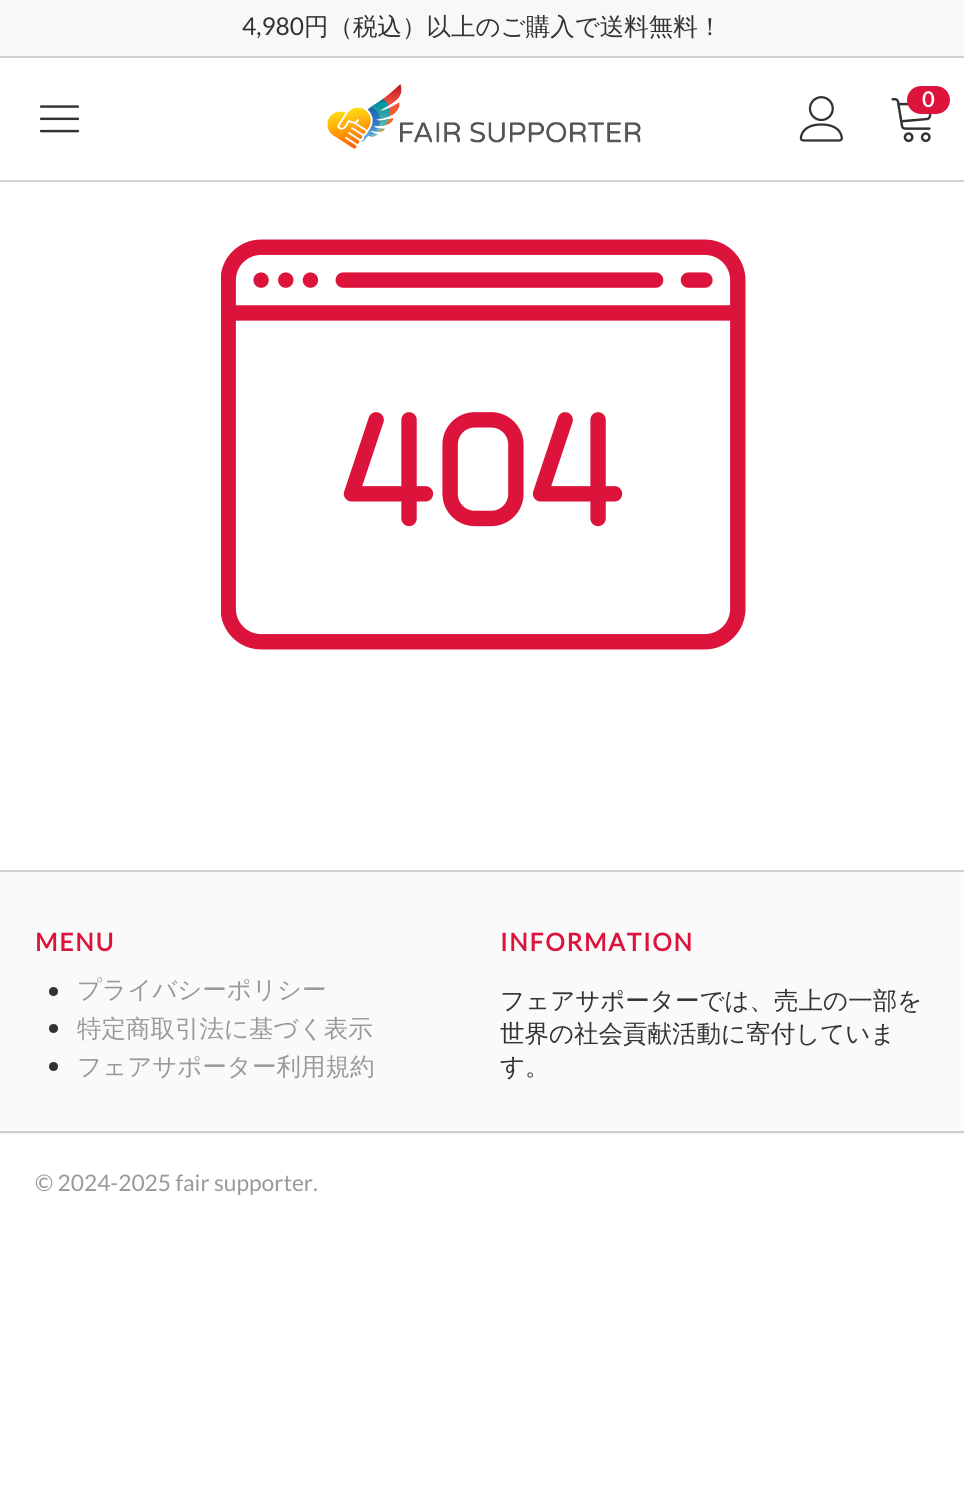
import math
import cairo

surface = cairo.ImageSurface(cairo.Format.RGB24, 964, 1498)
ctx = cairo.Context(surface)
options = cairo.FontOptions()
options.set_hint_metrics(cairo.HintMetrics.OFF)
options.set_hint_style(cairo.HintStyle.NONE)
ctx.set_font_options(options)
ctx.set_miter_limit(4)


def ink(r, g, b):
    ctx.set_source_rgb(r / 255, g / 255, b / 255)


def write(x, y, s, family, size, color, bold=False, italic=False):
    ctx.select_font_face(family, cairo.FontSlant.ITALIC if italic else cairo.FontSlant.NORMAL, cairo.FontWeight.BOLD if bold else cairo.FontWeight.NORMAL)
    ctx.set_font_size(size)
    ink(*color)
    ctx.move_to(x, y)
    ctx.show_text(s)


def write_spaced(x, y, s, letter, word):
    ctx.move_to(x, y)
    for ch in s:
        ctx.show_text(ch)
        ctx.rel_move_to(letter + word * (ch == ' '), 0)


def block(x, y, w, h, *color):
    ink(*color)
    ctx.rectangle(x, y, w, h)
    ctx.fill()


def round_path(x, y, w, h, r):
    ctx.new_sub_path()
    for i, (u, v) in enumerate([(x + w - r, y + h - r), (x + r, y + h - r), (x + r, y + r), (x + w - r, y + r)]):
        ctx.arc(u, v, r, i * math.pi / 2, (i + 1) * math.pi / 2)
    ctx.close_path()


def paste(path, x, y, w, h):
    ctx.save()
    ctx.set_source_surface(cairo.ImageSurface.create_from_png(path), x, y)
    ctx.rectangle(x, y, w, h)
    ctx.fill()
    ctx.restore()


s1 = dict(family="Lato", size=24.5, color=(51, 51, 51))
s2 = dict(family="WenQuanYi Zen Hei Medium", size=24.5, color=(51, 51, 51))
s3 = dict(family="Lato", size=21, color=(255, 255, 255), bold=True)
s4 = dict(family="WenQuanYi Zen Hei Medium", size=24.5, color=(153, 153, 153))
s5 = dict(family="Lato", size=22.75, color=(153, 153, 153))

ink(255, 255, 255)
ctx.paint()
block(0, 0, 964, 56, 248, 248, 248)
block(0, 56, 964, 2, 207, 208, 208)
write(242, 35, "4,980", **s1)
write(304, 35, "円（税込）以上のご購入で送料無料！", **s2)
block(0, 180, 964, 2, 207, 208, 208)
paste("pic1.png", 327, 84, 314, 65)
paste("pic2.png", 799, 96, 44, 46)
paste("pic3.png", 891, 98, 41, 45)
ink(220, 20, 60)
round_path(907, 86, 43, 28, 14)
ctx.fill()
write(922, 107, "0", **s3)
paste("pic4.png", 39, 105, 41, 28)
paste("pic5.png", 221, 239, 525, 411)
block(0, 870, 964, 2, 207, 208, 208)
block(0, 872, 964, 259, 250, 250, 250)
ctx.set_font_size(24.5)
ink(220, 20, 60)
write_spaced(35, 951, "MENU", 1.75, 0)
ink(51, 51, 51)
ctx.new_path()
ctx.arc(53.5, 991.5, 4.5, 0, 2 * math.pi)
ctx.fill()
write(77, 998, "プライバシーポリシー", **s4)
ink(51, 51, 51)
ctx.new_path()
ctx.arc(53.5, 1028.5, 4.5, 0, 2 * math.pi)
ctx.fill()
write(77, 1037, "特定商取引法に基づく表示", **s4)
ink(51, 51, 51)
ctx.new_path()
ctx.arc(53.5, 1066.5, 4.5, 0, 2 * math.pi)
ctx.fill()
write(77, 1075, "フェアサポーター利用規約", **s4)
ctx.select_font_face("Lato", cairo.FontSlant.NORMAL, cairo.FontWeight.BOLD)
ink(220, 20, 60)
write_spaced(500, 951, "INFORMATION", 1.75, 0)
write(500, 1009, "フェアサポーターでは、売上の一部を", **s2)
write(500, 1042, "世界の社会貢献活動に寄付していま", **s2)
write(500, 1075, "す。", **s2)
block(0, 1133, 964, 1, 242, 242, 242)
block(0, 1131, 964, 2, 207, 208, 208)
write(35, 1191, "© 2024-2025 fair supporter.", **s5)
surface.write_to_png("screenshot.png")
